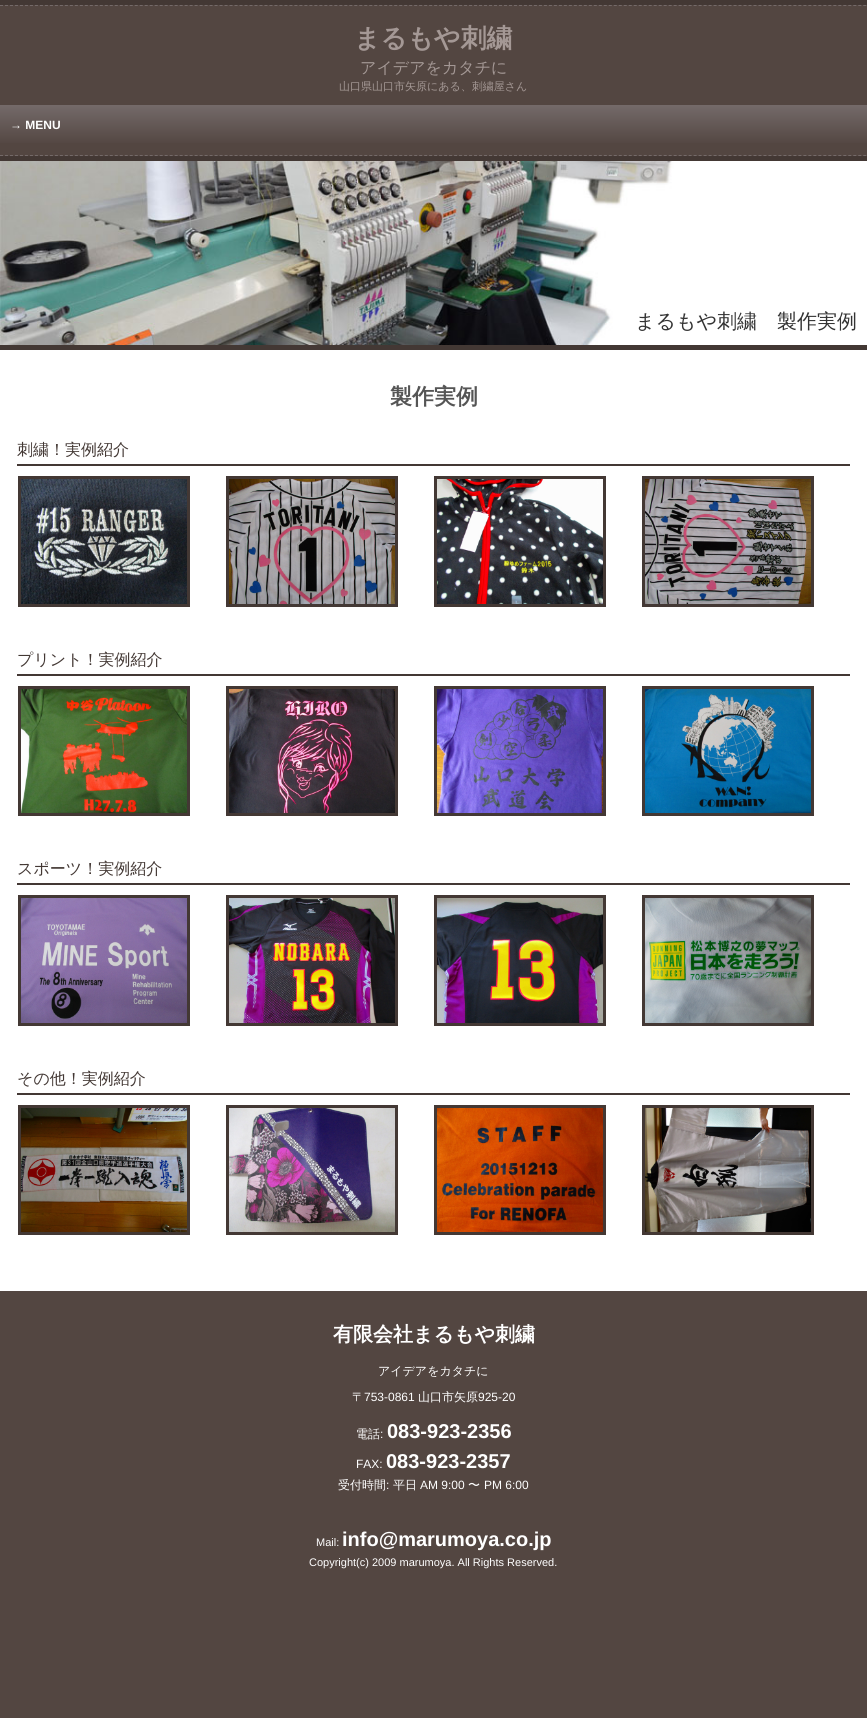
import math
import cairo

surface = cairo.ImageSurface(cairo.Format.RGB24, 867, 1718)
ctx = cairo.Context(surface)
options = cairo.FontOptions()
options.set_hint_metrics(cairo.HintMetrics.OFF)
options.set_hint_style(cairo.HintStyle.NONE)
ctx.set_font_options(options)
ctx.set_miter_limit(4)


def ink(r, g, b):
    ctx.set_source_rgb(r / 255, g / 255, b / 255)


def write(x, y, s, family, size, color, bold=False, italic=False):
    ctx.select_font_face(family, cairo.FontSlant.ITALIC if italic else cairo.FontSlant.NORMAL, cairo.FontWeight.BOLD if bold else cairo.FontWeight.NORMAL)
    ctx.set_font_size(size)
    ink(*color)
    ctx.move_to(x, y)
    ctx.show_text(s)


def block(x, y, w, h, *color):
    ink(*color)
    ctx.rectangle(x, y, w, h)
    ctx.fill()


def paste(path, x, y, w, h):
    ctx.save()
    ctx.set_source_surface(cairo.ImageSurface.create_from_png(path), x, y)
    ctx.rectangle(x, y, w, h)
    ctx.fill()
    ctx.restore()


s1 = dict(family="WenQuanYi Zen Hei", size=26, color=(164, 152, 149), bold=True)
s2 = dict(family="WenQuanYi Zen Hei Medium", size=16, color=(164, 152, 149))
s3 = dict(family="WenQuanYi Zen Hei Medium", size=11, color=(164, 152, 149))
s4 = dict(family="Liberation Sans", size=12, color=(255, 255, 255), bold=True)
s5 = dict(family="WenQuanYi Zen Hei Medium", size=20, color=(51, 51, 51))
s6 = dict(family="WenQuanYi Zen Hei", size=22, color=(85, 85, 85), bold=True)
s7 = dict(family="WenQuanYi Zen Hei Medium", size=16, color=(67, 56, 52))
s8 = dict(family="WenQuanYi Zen Hei", size=20, color=(255, 255, 255), bold=True)
s9 = dict(family="WenQuanYi Zen Hei Medium", size=12, color=(255, 255, 255))
s10 = dict(family="Liberation Sans", size=12, color=(255, 255, 255))
s11 = dict(family="Liberation Sans", size=20, color=(255, 255, 255), bold=True)
s12 = dict(family="Liberation Sans", size=11, color=(255, 255, 255))

ink(83, 70, 65)
ctx.paint()
block(0, 350, 867, 941, 255, 255, 255)
block(0, 0, 867, 5, 67, 56, 52)
ctx.new_path()
ctx.move_to(0, 5.5)
ctx.line_to(867, 5.5)
ink(116, 106, 105)
ctx.set_line_width(1)
ctx.set_dash([3, 1.99])
ctx.stroke()
ctx.new_path()
ctx.move_to(0, 155.5)
ctx.line_to(867, 155.5)
ctx.stroke()
write(354, 47, "まるもや刺繍", **s1)
write(360, 73, "アイデアをカタチに", **s2)
write(339, 90, "山口県山口市矢原にある、刺繍屋さん", **s3)
gradient = cairo.LinearGradient(434, 105, 434, 145)
gradient.add_color_stop_rgba(0, 0.455, 0.416, 0.412, 1)
gradient.add_color_stop_rgba(1, 0.325, 0.275, 0.255, 1)
ctx.set_source(gradient)
ctx.rectangle(0, 105, 867, 38)
ctx.fill()
write(10, 129, "→ MENU", **s4)
block(0, 156, 867, 5, 67, 56, 52)
block(0, 345, 867, 5, 67, 56, 52)
paste("pic1.png", 0, 161, 867, 184)
write(635, 328, "まるもや刺繍　製作実例", **s5)
write(390, 404, "製作実例", **s6)
block(17, 464, 833, 2, 67, 56, 52)
write(17, 455, "刺繍！実例紹介", **s7)
ctx.rectangle(19.5, 477.5, 169, 128)
ctx.set_line_width(3)
ctx.set_dash([])
ctx.stroke()
paste("pic2.png", 21, 479, 166, 125)
ctx.rectangle(227.5, 477.5, 169, 128)
ctx.stroke()
paste("pic3.png", 229, 479, 166, 125)
ctx.rectangle(435.5, 477.5, 169, 128)
ctx.stroke()
paste("pic4.png", 437, 479, 166, 125)
ctx.rectangle(643.5, 477.5, 169, 128)
ctx.stroke()
paste("pic5.png", 645, 479, 166, 125)
block(17, 674, 833, 2, 67, 56, 52)
write(17, 665, "プリント！実例紹介", **s7)
ctx.rectangle(19.5, 687.5, 169, 127)
ctx.stroke()
paste("pic6.png", 21, 689, 166, 124)
ctx.rectangle(227.5, 687.5, 169, 127)
ctx.stroke()
paste("pic7.png", 229, 689, 166, 124)
ctx.rectangle(435.5, 687.5, 169, 127)
ctx.stroke()
paste("pic8.png", 437, 689, 166, 124)
ctx.rectangle(643.5, 687.5, 169, 127)
ctx.stroke()
paste("pic9.png", 645, 689, 166, 124)
block(17, 883, 833, 2, 67, 56, 52)
write(17, 874, "スポーツ！実例紹介", **s7)
ctx.rectangle(19.5, 896.5, 169, 128)
ctx.stroke()
paste("pic10.png", 21, 898, 166, 125)
ctx.rectangle(227.5, 896.5, 169, 128)
ctx.stroke()
paste("pic11.png", 229, 898, 166, 125)
ctx.rectangle(435.5, 896.5, 169, 128)
ctx.stroke()
paste("pic12.png", 437, 898, 166, 125)
ctx.rectangle(643.5, 896.5, 169, 128)
ctx.stroke()
paste("pic13.png", 645, 898, 166, 125)
block(17, 1093, 833, 2, 67, 56, 52)
write(17, 1084, "その他！実例紹介", **s7)
ctx.rectangle(19.5, 1106.5, 169, 127)
ctx.stroke()
paste("pic14.png", 21, 1108, 166, 124)
ctx.rectangle(227.5, 1106.5, 169, 127)
ctx.stroke()
paste("pic15.png", 229, 1108, 166, 124)
ctx.rectangle(435.5, 1106.5, 169, 127)
ctx.stroke()
paste("pic16.png", 437, 1108, 166, 124)
ctx.rectangle(643.5, 1106.5, 169, 127)
ctx.stroke()
paste("pic17.png", 645, 1108, 166, 124)
write(333, 1341, "有限会社まるもや刺繍", **s8)
write(378, 1375, "アイデアをカタチに", **s9)
write(352, 1401, "〒", **s9)
write(364, 1401, "753-0861", **s10)
write(418, 1401, "山口市矢原", **s9)
write(478, 1401, "925-20", **s10)
write(356, 1438, "電話", **s9)
write(380, 1438, ":", **s10)
write(387, 1438, "083-923-2356", **s11)
write(356, 1468, "FAX:", **s10)
write(386, 1468, "083-923-2357", **s11)
write(338, 1489, "受付時間", **s9)
write(386, 1489, ":", **s10)
write(393, 1489, "平日", **s9)
write(420, 1489, "AM 9:00", **s10)
write(468, 1489, "〜", **s9)
write(484, 1489, "PM 6:00", **s10)
write(316, 1546, "Mail:", **s12)
write(342, 1546, "info@marumoya.co.jp", **s11)
write(309, 1566, "Copyright(c) 2009 marumoya. All Rights Reserved.", **s12)
surface.write_to_png("screenshot.png")
